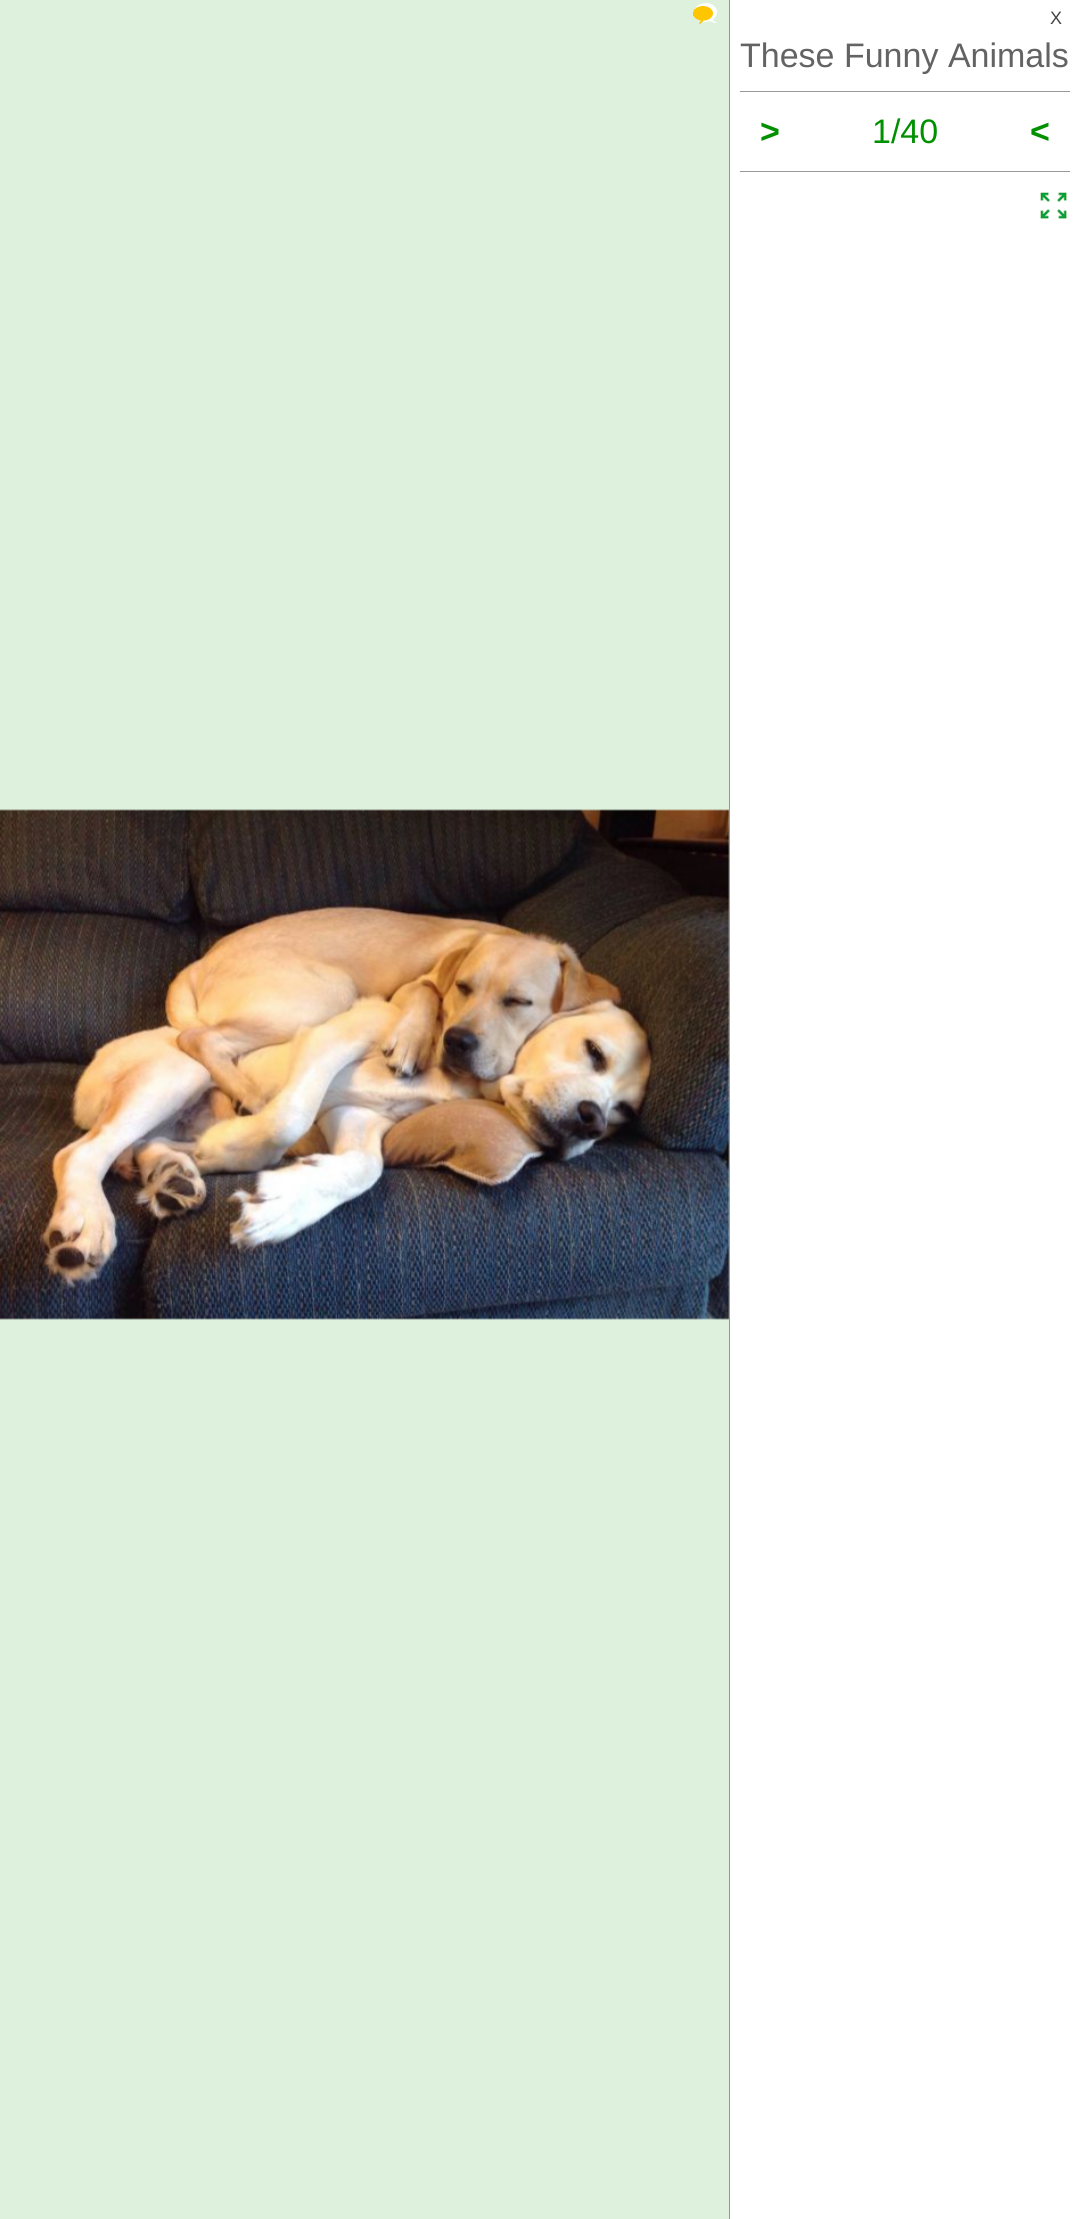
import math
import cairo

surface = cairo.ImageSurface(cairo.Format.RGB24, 1080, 2219)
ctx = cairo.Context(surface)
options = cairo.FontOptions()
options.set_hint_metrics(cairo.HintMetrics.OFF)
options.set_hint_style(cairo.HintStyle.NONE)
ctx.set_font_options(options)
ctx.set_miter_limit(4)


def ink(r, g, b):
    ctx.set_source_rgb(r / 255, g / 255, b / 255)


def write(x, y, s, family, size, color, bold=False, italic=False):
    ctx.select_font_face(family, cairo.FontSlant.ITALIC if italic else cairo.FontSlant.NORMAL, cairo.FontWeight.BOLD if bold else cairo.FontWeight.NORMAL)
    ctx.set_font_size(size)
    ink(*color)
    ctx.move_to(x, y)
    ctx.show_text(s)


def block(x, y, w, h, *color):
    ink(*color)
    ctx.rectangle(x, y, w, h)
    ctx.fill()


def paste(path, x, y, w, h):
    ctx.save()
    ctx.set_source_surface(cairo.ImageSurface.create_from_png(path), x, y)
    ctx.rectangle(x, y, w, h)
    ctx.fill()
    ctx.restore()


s1 = dict(family="Liberation Sans", size=18, color=(68, 68, 68))
s2 = dict(family="Liberation Sans", size=34, color=(99, 99, 99))
s3 = dict(family="Liberation Sans", size=34, color=(0, 144, 0), bold=True)
s4 = dict(family="Liberation Sans", size=34, color=(0, 144, 0))

ink(221, 241, 221)
ctx.paint()
paste("pic1.png", 693, 3, 24, 21)
paste("pic2.png", 0, 809, 729, 511)
block(730, 0, 350, 2219, 255, 255, 255)
block(729, 0, 1, 2219, 153, 153, 153)
write(1050, 24, "X", **s1)
write(740, 67, "These Funny Animals", **s2)
block(740, 91, 330, 1, 153, 153, 153)
block(740, 171, 330, 1, 153, 153, 153)
write(760, 143, ">", **s3)
write(872, 143, "1/40", **s4)
write(1030, 143, "<", **s3)
paste("pic3.png", 1040, 192, 27, 27)
surface.write_to_png("screenshot.png")
